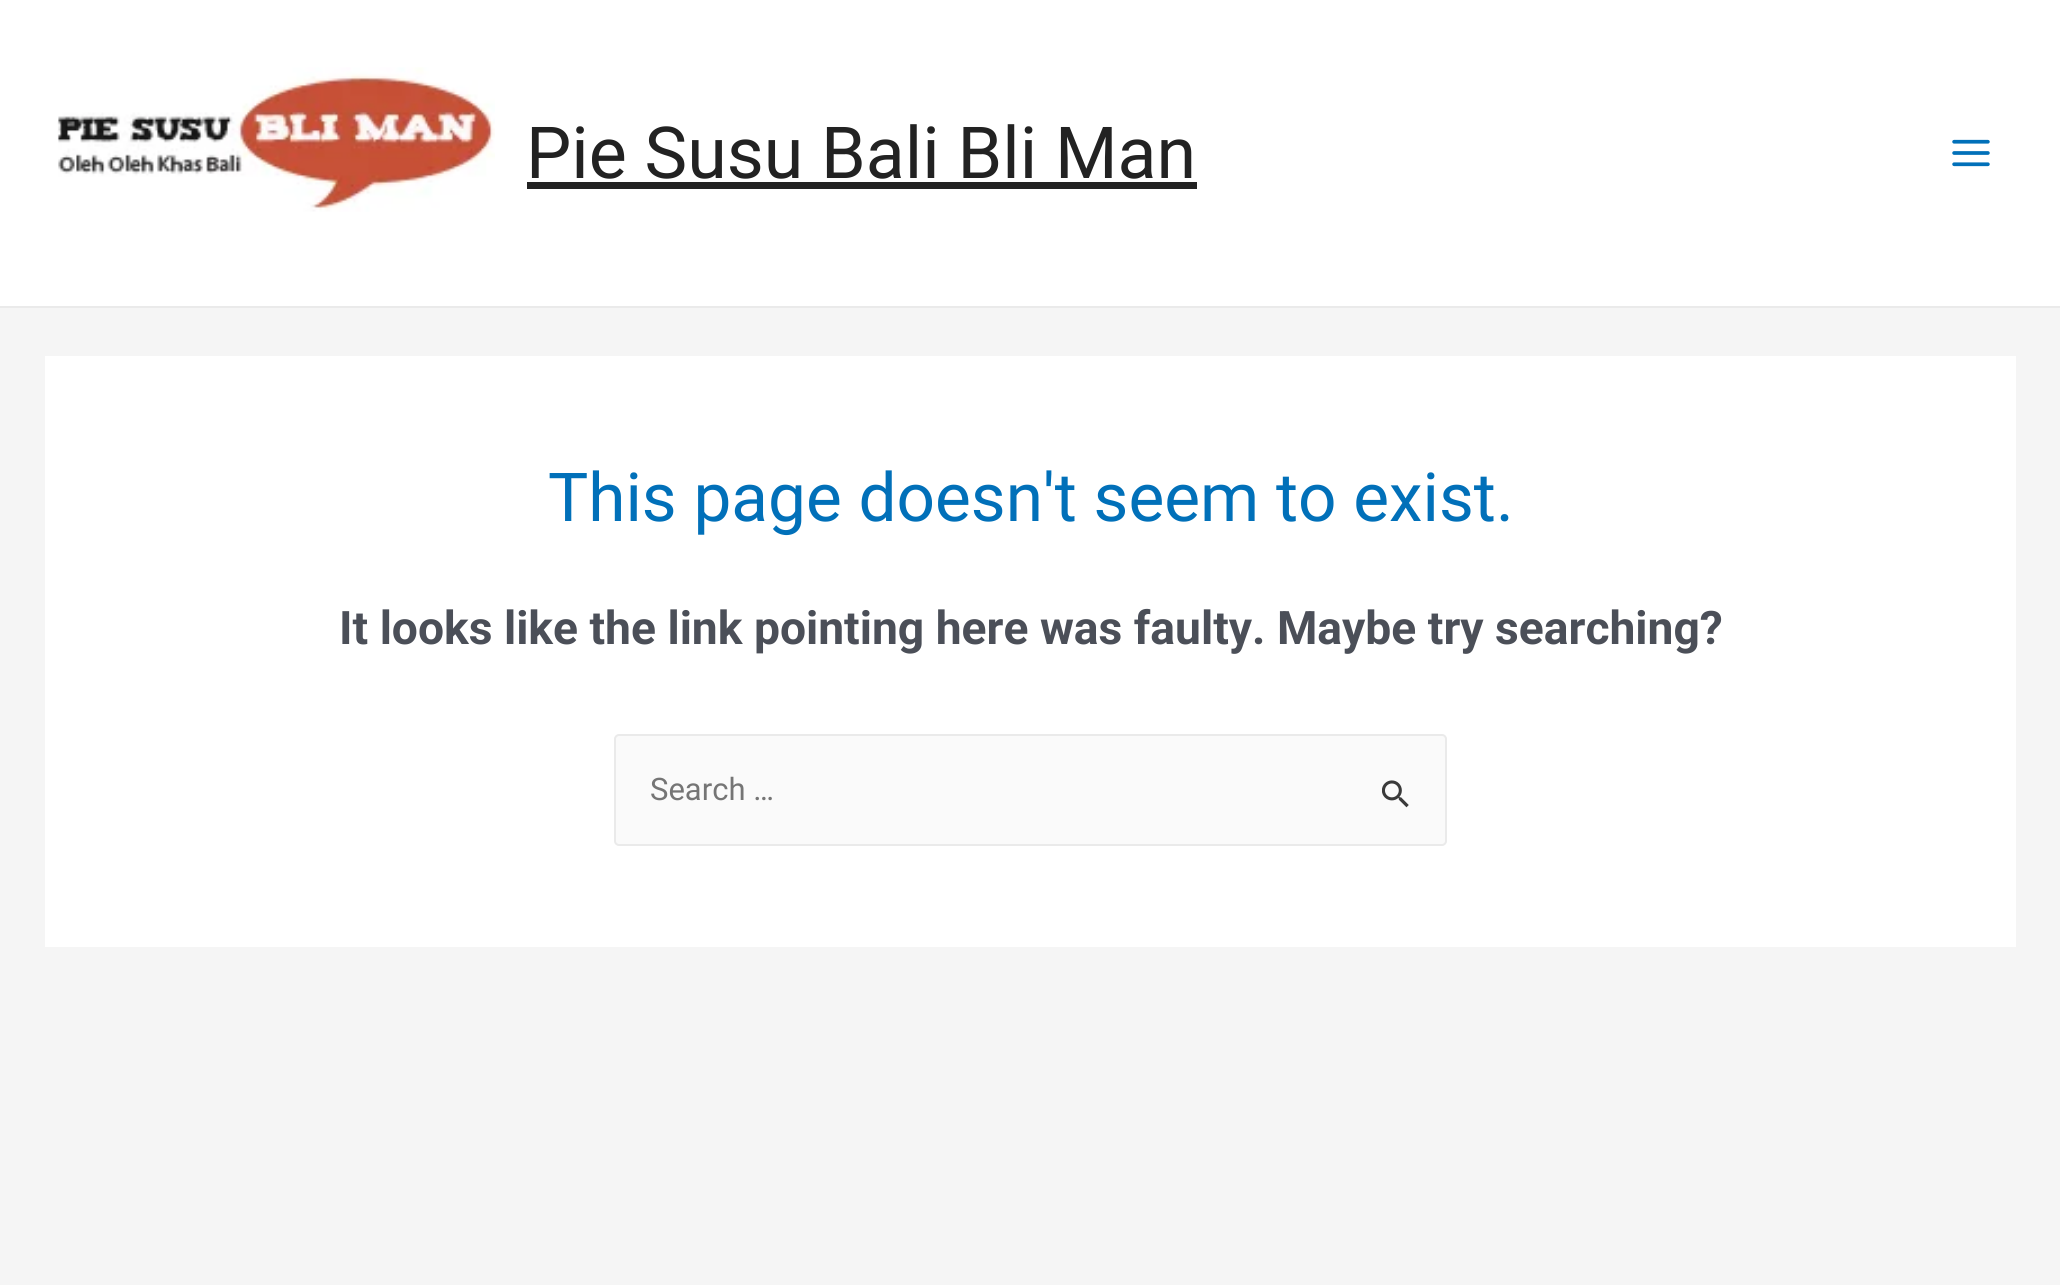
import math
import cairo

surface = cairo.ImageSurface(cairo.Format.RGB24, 2060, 1285)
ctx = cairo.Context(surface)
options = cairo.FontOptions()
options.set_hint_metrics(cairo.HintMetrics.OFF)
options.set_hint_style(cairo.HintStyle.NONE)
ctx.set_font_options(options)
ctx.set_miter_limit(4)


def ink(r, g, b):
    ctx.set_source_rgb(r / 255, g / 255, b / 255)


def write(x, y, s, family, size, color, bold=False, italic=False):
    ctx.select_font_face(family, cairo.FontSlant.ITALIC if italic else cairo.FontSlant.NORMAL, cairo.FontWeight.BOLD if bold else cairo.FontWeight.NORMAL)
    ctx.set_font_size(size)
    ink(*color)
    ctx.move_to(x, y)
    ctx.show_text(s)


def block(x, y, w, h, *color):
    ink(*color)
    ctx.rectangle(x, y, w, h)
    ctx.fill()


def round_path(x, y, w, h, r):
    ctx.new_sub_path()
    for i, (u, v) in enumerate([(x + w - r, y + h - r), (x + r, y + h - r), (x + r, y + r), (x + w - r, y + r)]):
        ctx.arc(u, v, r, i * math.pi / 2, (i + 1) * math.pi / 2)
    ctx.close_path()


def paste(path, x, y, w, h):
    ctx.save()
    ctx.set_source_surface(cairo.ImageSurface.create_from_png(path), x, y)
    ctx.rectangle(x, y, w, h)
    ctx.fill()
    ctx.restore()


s1 = dict(family="Roboto", size=71.75, color=(34, 34, 34))
s2 = dict(family="Roboto", size=67.5, color=(1, 112, 185))
s3 = dict(family="Roboto", size=46.2, color=(75, 79, 88), bold=True)
s4 = dict(family="Roboto", size=31, color=(117, 117, 117))

ink(245, 245, 245)
ctx.paint()
block(0, 0, 2060, 306, 255, 255, 255)
block(0, 306, 2060, 2, 234, 234, 234)
paste("pic1.png", 57, 67, 438, 145)
write(526, 178, "Pie Susu Bali Bli Man", **s1)
block(527, 182, 670, 7, 34, 34, 34)
paste("pic2.png", 1952, 139, 38, 28)
block(45, 356, 1971, 591, 255, 255, 255)
write(548, 521, "This page doesn't seem to exist.", **s2)
write(339, 644, "It looks like the link pointing here was faulty. Maybe try searching?", **s3)
ink(250, 250, 250)
round_path(615, 735, 831, 110, 4)
ctx.fill_preserve()
ink(234, 234, 234)
ctx.stroke()
write(650, 800, "Search …", **s4)
paste("pic3.png", 1382, 780, 27, 28)
surface.write_to_png("screenshot.png")
